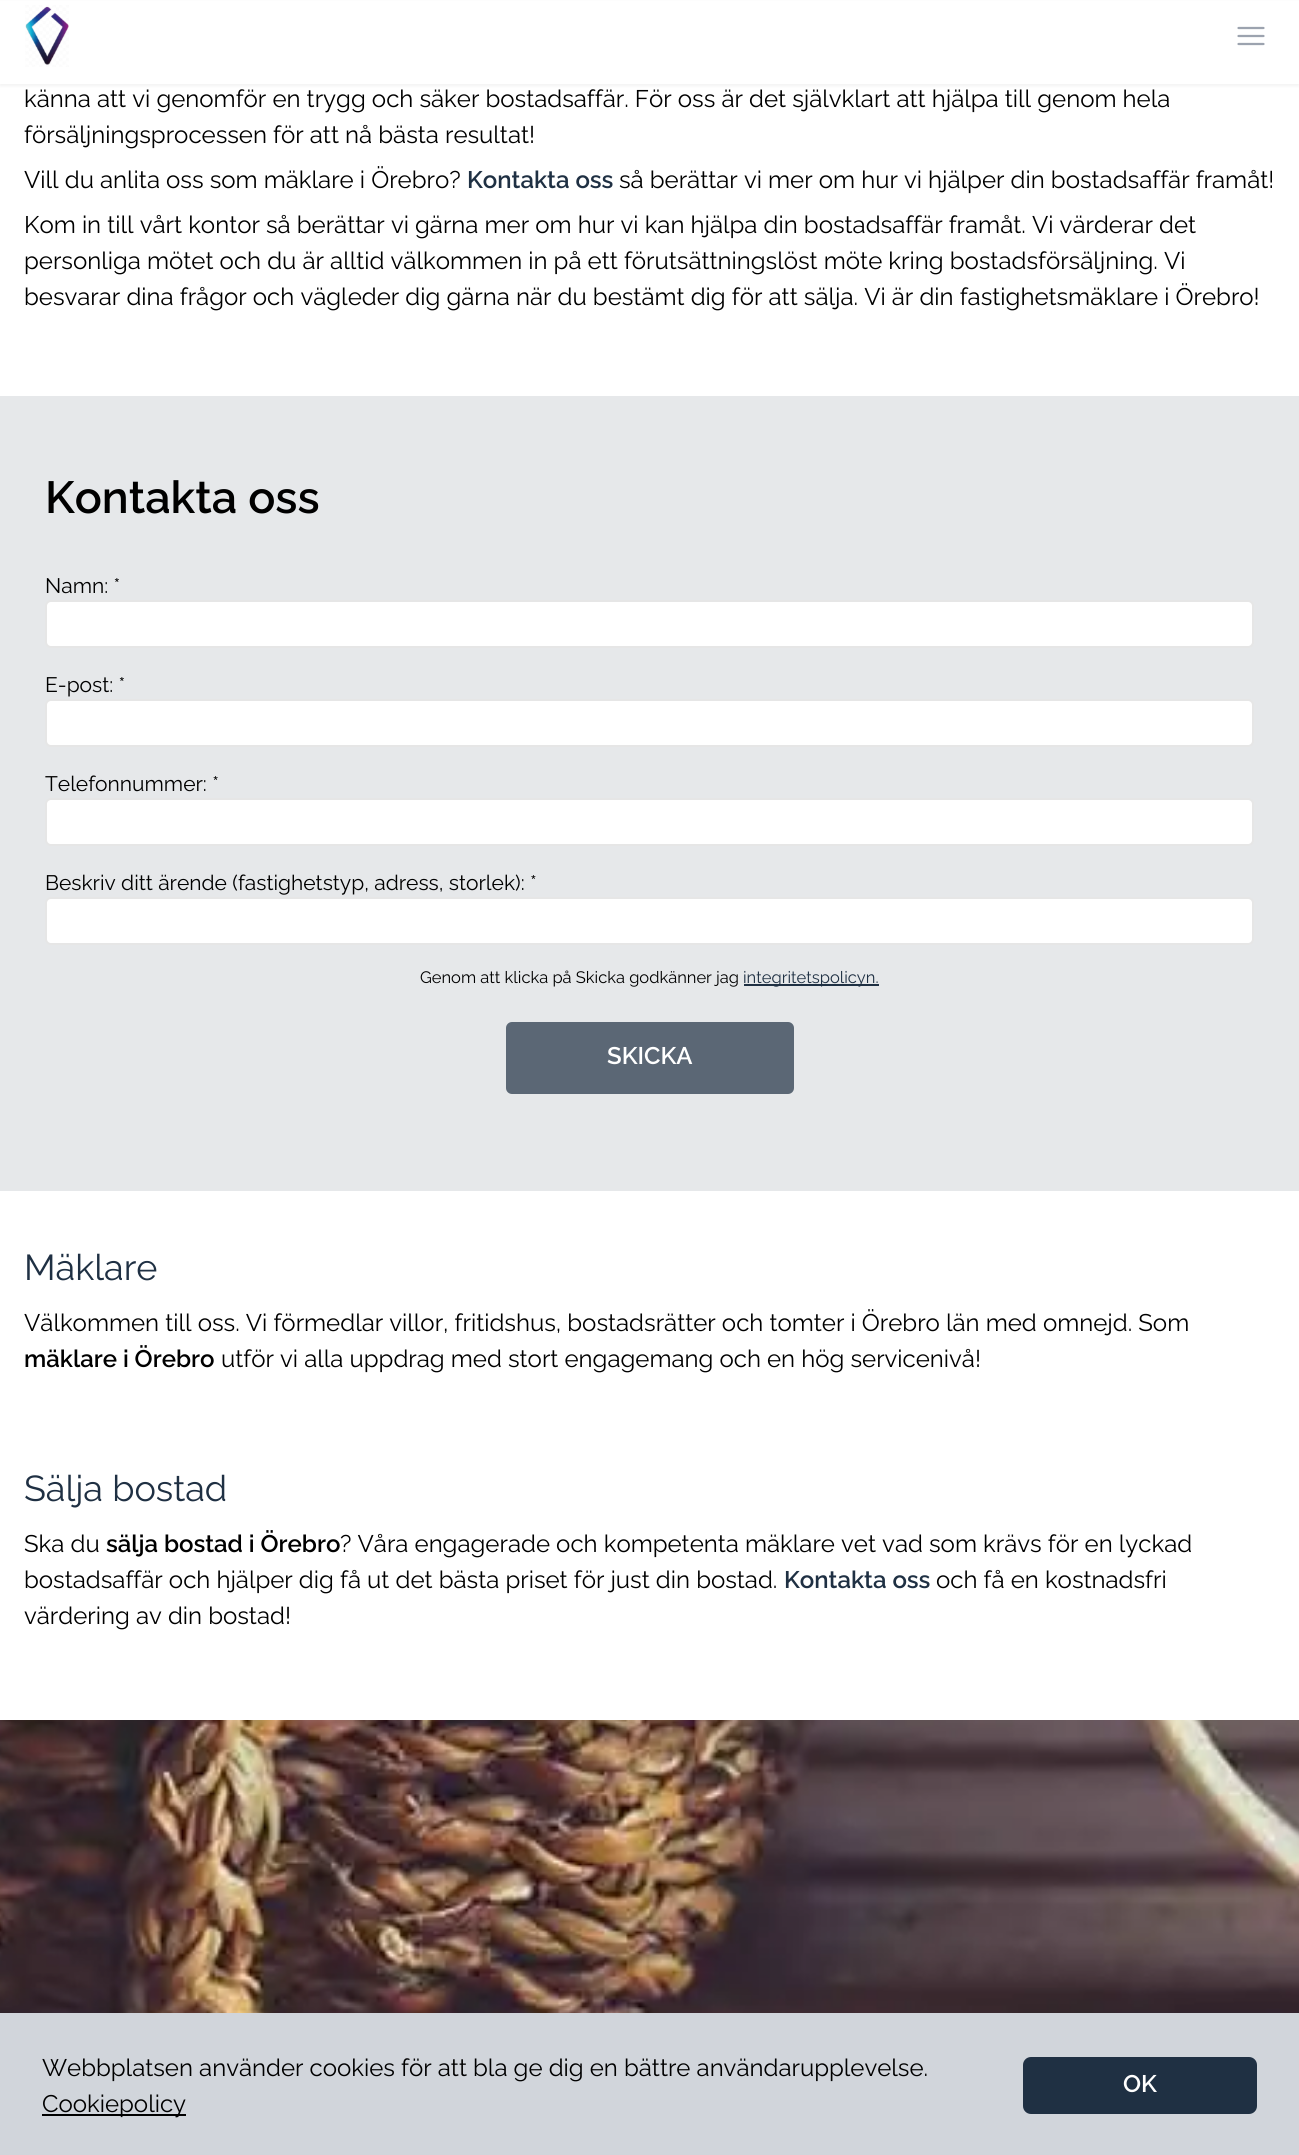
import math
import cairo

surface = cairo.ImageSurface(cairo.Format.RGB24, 1299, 2155)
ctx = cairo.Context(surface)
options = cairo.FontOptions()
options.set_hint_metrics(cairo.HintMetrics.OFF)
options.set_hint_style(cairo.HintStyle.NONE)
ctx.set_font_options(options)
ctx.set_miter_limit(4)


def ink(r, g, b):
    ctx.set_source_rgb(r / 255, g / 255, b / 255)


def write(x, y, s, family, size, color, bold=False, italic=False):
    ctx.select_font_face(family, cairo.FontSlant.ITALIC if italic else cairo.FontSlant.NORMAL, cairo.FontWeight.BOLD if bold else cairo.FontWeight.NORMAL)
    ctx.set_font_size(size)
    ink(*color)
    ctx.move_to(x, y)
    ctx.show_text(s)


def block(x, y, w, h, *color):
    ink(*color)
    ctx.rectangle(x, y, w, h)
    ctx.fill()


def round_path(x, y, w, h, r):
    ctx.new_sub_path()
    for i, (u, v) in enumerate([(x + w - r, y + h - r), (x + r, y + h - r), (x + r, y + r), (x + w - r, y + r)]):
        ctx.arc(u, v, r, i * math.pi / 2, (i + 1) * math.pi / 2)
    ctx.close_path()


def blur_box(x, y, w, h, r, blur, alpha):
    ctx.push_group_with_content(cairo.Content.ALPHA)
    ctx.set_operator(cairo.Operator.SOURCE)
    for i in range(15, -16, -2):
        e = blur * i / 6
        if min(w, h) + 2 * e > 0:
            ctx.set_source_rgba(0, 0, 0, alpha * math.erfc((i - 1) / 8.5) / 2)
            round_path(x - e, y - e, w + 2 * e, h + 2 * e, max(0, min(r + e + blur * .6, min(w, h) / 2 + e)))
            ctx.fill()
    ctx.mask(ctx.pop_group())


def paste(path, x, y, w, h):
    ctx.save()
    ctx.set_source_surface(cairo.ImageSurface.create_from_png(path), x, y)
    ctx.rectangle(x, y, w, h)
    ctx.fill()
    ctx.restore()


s1 = dict(family="Raleway", size=24, color=(0, 0, 0))
s2 = dict(family="Raleway SemiBold", size=24, color=(31, 48, 67))
s3 = dict(family="Raleway SemiBold", size=45, color=(0, 0, 0))
s4 = dict(family="Raleway", size=21, color=(0, 0, 0))
s5 = dict(family="Raleway", size=16.5, color=(0, 0, 0))
s6 = dict(family="Raleway", size=16.5, color=(31, 48, 67))
s7 = dict(family="Raleway SemiBold", size=24, color=(255, 255, 255))
s8 = dict(family="Raleway", size=36, color=(31, 48, 67))
s9 = dict(family="Raleway SemiBold", size=24, color=(0, 0, 0))

ink(255, 255, 255)
ctx.paint()
ink(0, 0, 0)
blur_box(0, 2, 1299, 84, 0, 1.5, 0.05)
block(0, 1, 1299, 83, 255, 255, 255)
paste("pic1.png", 25, 5, 44, 62)
ctx.new_path()
ctx.move_to(1238.5, 28)
ctx.line_to(1263.5, 28)
ctx.move_to(1238.5, 36)
ctx.line_to(1263.5, 36)
ctx.move_to(1238.5, 44)
ctx.line_to(1263.5, 44)
ink(156, 163, 175)
ctx.set_line_width(2.2)
ctx.set_line_cap(cairo.LineCap.ROUND)
ctx.set_line_join(cairo.LineJoin.ROUND)
ctx.stroke()
write(24, 107, "känna att vi genomför en trygg och säker bostadsaffär. För oss är det självklart att hjälpa till genom hela", **s1)
write(24, 143, "försäljningsprocessen för att nå bästa resultat!", **s1)
write(24, 188, "Vill du anlita oss som mäklare i Örebro?", **s1)
write(467, 188, "Kontakta oss", **s2)
write(619, 188, "så berättar vi mer om hur vi hjälper din bostadsaffär framåt!", **s1)
write(24, 233, "Kom in till vårt kontor så berättar vi gärna mer om hur vi kan hjälpa din bostadsaffär framåt. Vi värderar det", **s1)
write(24, 269, "personliga mötet och du är alltid välkommen in på ett förutsättningslöst möte kring bostadsförsäljning. Vi", **s1)
write(24, 305, "besvarar dina frågor och vägleder dig gärna när du bestämt dig för att sälja. Vi är din fastighetsmäklare i Örebro!", **s1)
block(0, 396, 1299, 795, 230, 232, 234)
write(45, 513, "Kontakta oss", **s3)
write(45, 593, "Namn: *", **s4)
ink(255, 255, 255)
round_path(46, 601, 1207, 46, 5)
ctx.fill_preserve()
ink(230, 230, 230)
ctx.set_line_width(2)
ctx.set_line_cap(cairo.LineCap.BUTT)
ctx.set_line_join(cairo.LineJoin.MITER)
ctx.stroke()
write(45, 692, "E-post: *", **s4)
ink(255, 255, 255)
round_path(46, 700, 1207, 46, 5)
ctx.fill_preserve()
ink(230, 230, 230)
ctx.stroke()
write(45, 791, "Telefonnummer: *", **s4)
ink(255, 255, 255)
round_path(46, 799, 1207, 46, 5)
ctx.fill_preserve()
ink(230, 230, 230)
ctx.stroke()
write(45, 890, "Beskriv ditt ärende (fastighetstyp, adress, storlek): *", **s4)
ink(255, 255, 255)
round_path(46, 898, 1207, 46, 5)
ctx.fill_preserve()
ink(230, 230, 230)
ctx.stroke()
write(420, 983, "Genom att klicka på Skicka godkänner jag", **s5)
block(744, 984, 135, 2, 31, 48, 67)
write(743, 983, "integritetspolicyn.", **s6)
ink(91, 103, 117)
round_path(506, 1022, 288, 72, 6)
ctx.fill()
write(607, 1064, "SKICKA", **s7)
write(24, 1280, "Mäklare", **s8)
write(24, 1331, "Välkommen till oss. Vi förmedlar villor, fritidshus, bostadsrätter och tomter i Örebro län med omnejd. Som", **s1)
write(24, 1367, "mäklare i Örebro", **s9)
write(221, 1367, "utför vi alla uppdrag med stort engagemang och en hög servicenivå!", **s1)
write(24, 1501, "Sälja bostad", **s8)
write(24, 1552, "Ska du", **s1)
write(106, 1552, "sälja bostad i Örebro", **s9)
write(340, 1552, "? Våra engagerade och kompetenta mäklare vet vad som krävs för en lyckad", **s1)
write(24, 1588, "bostadsaffär och hjälper dig få ut det bästa priset för just din bostad.", **s1)
write(784, 1588, "Kontakta oss", **s2)
write(936, 1588, "och få en kostnadsfri", **s1)
write(24, 1624, "värdering av din bostad!", **s1)
paste("pic2.png", 0, 1720, 1299, 293)
block(0, 2013, 1299, 142, 209, 213, 219)
write(42, 2076, "Webbplatsen använder cookies för att bla ge dig en bättre användarupplevelse.", **s1)
block(42, 2114, 144, 2, 0, 0, 0)
write(42, 2112, "Cookiepolicy", **s1)
ink(31, 48, 67)
round_path(1023, 2057, 234, 57, 8)
ctx.fill()
write(1123, 2092, "OK", **s7)
surface.write_to_png("screenshot.png")
